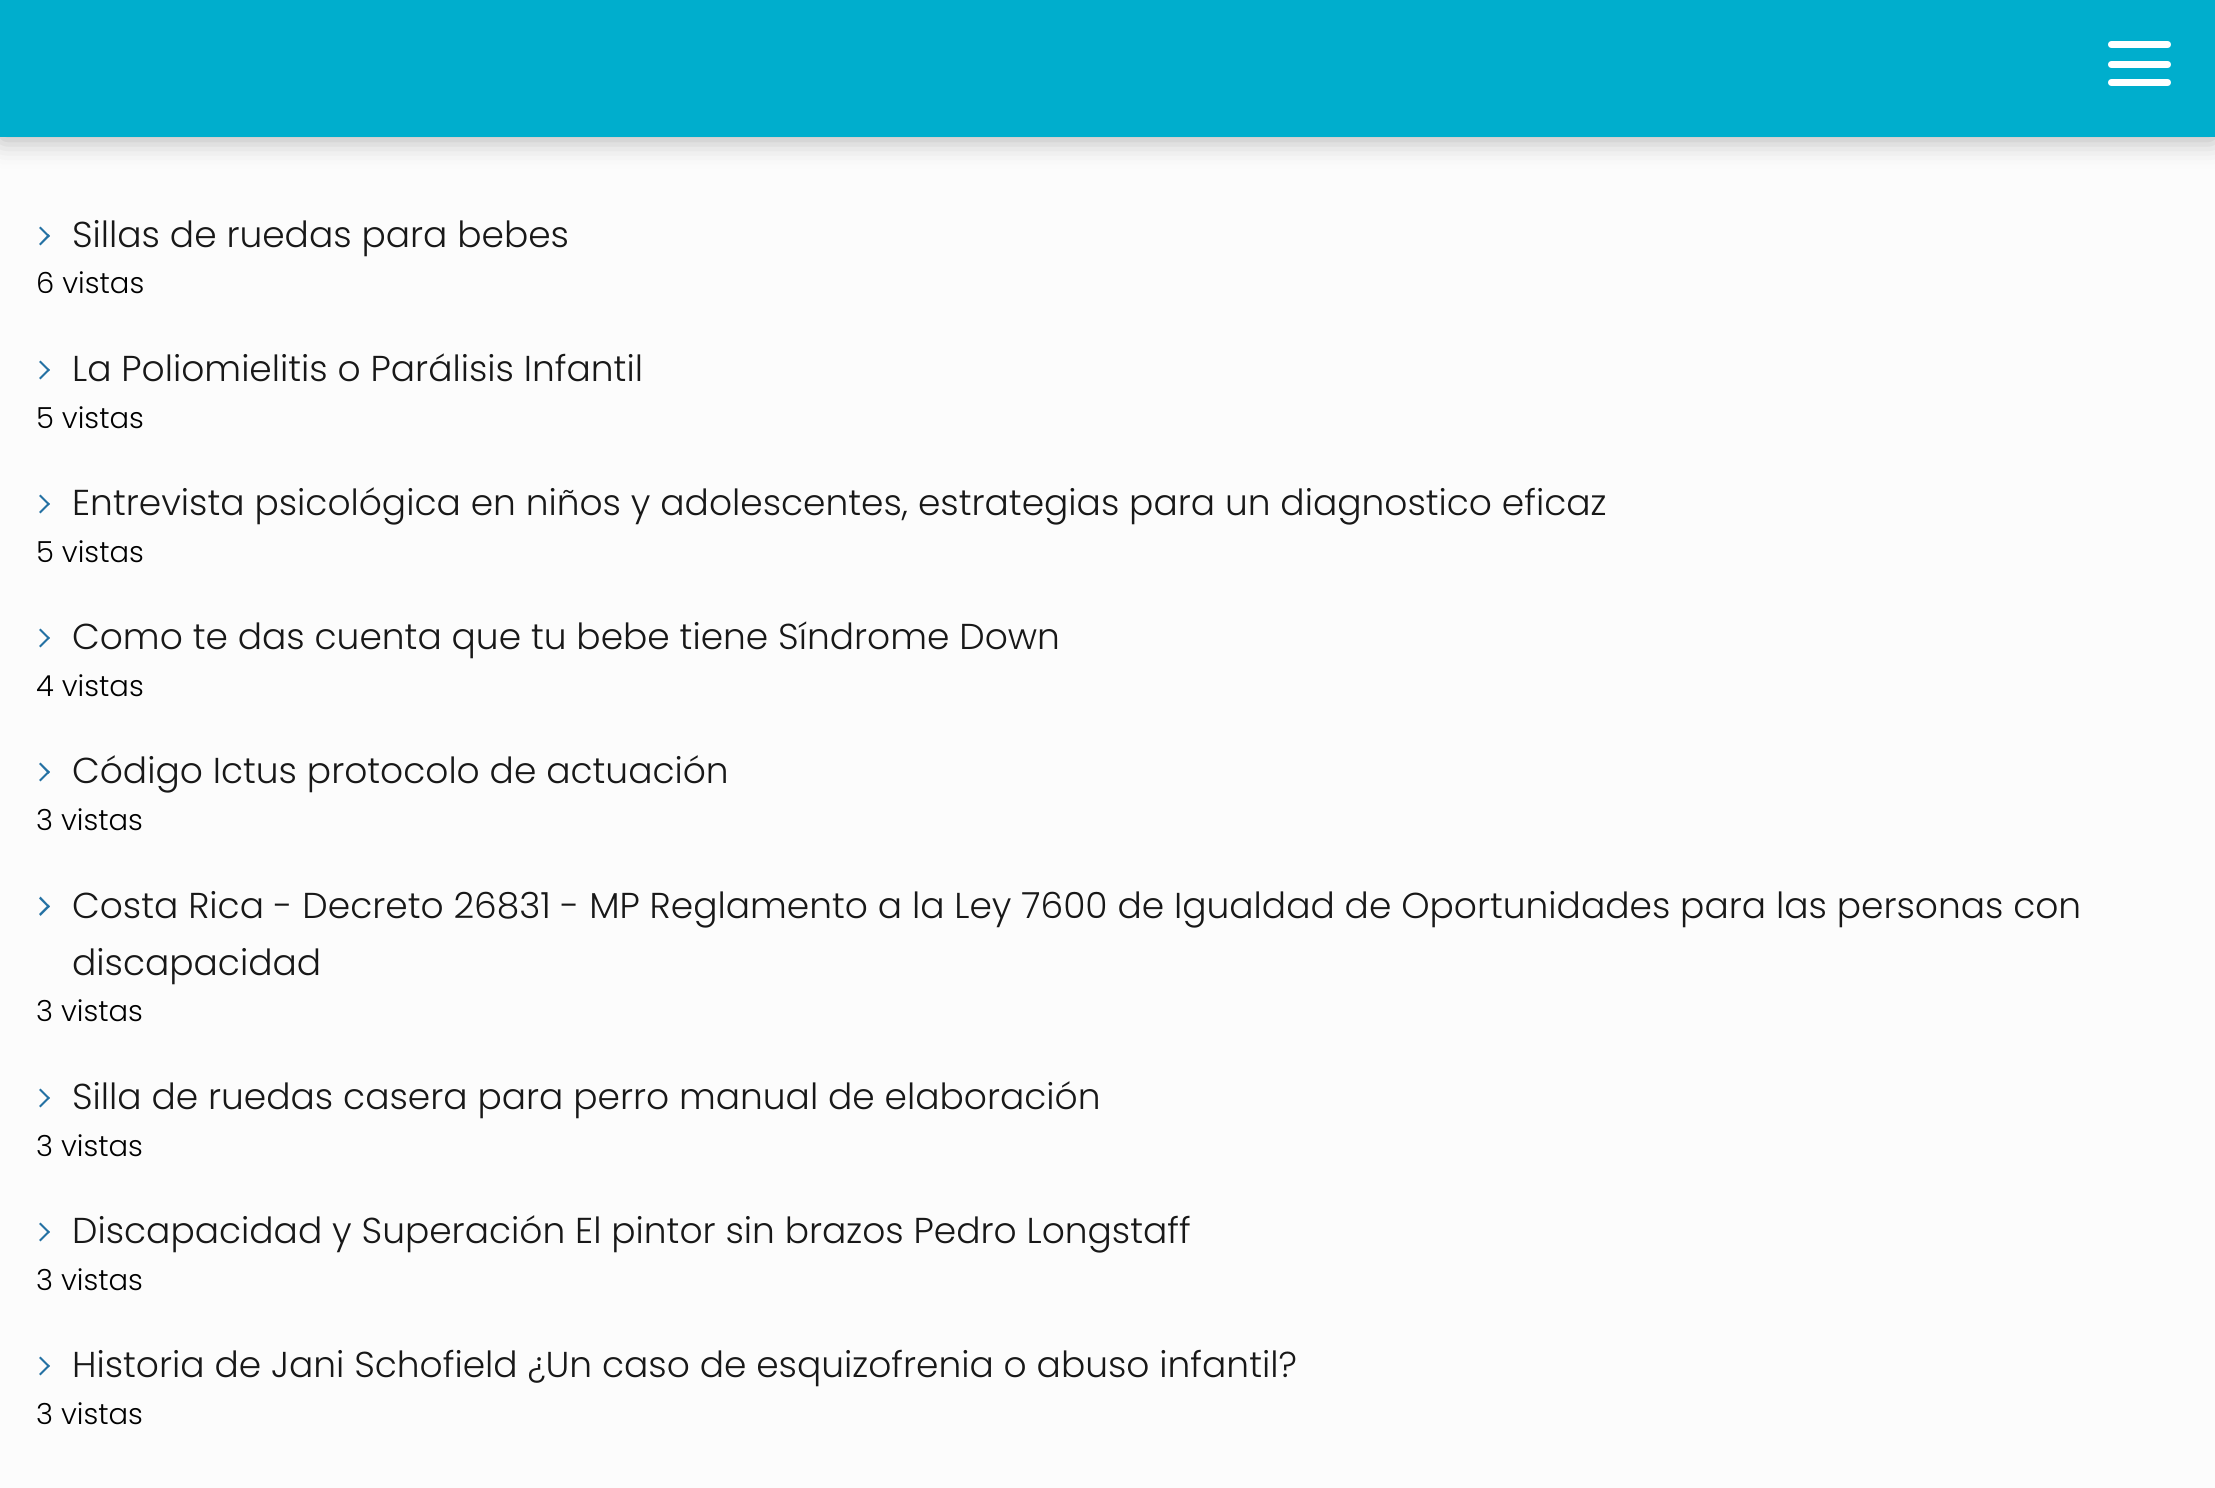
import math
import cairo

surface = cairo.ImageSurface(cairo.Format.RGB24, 2215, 1488)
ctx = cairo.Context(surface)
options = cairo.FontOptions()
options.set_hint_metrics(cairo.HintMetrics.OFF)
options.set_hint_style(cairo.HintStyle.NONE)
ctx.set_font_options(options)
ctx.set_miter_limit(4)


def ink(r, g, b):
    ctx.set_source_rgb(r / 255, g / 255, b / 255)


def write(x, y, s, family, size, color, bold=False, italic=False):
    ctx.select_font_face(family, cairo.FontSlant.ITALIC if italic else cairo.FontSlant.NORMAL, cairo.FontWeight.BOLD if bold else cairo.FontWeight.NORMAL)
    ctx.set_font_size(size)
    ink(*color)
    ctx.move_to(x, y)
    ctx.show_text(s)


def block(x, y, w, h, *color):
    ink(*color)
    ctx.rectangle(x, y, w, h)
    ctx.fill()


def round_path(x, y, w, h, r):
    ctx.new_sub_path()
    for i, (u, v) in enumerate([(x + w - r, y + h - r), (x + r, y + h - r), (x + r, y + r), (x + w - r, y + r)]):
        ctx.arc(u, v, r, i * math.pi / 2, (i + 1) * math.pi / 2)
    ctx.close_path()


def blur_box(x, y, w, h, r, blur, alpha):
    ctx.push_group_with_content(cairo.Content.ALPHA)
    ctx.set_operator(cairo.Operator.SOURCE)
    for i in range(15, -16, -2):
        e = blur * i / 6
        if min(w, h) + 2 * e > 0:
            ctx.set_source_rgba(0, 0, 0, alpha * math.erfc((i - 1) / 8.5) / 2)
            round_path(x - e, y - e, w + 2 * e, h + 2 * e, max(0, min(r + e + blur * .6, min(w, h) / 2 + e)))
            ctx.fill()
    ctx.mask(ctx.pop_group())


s1 = dict(family="Poppins Light", size=36, color=(24, 24, 24))
s2 = dict(family="Poppins Light", size=29, color=(0, 0, 0))

ink(252, 252, 252)
ctx.paint()
ink(0, 0, 0)
blur_box(0, 2, 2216, 138, 0, 13.5, 0.3)
block(0, 0, 2215, 137, 0, 174, 205)
ink(255, 255, 255)
round_path(2108, 41, 63, 7, 3.5)
ctx.fill()
round_path(2108, 61, 63, 7, 3.5)
ctx.fill()
round_path(2108, 79, 63, 7, 3.5)
ctx.fill()
ink(36, 113, 163)
ctx.new_path()
ctx.move_to(39, 228)
ctx.line_to(40.5, 226.5)
ctx.line_to(50, 236)
ctx.line_to(48.5, 237.5)
ctx.close_path()
ctx.fill()
ctx.new_path()
ctx.move_to(39, 244)
ctx.line_to(48.5, 234)
ctx.line_to(50, 236)
ctx.line_to(40.5, 245.5)
ctx.close_path()
ctx.fill()
write(72, 247, "Sillas de ruedas para bebes", **s1)
write(36, 293, "6 vistas", **s2)
ink(36, 113, 163)
ctx.new_path()
ctx.move_to(39, 362)
ctx.line_to(40.5, 360.5)
ctx.line_to(50, 370)
ctx.line_to(48.5, 371.5)
ctx.close_path()
ctx.fill()
ctx.new_path()
ctx.move_to(39, 378)
ctx.line_to(48.5, 368.5)
ctx.line_to(50, 370)
ctx.line_to(40.5, 379.5)
ctx.close_path()
ctx.fill()
write(72, 381, "La Poliomielitis o Parálisis Infantil", **s1)
write(36, 428, "5 vistas", **s2)
ink(36, 113, 163)
ctx.new_path()
ctx.move_to(39, 496)
ctx.line_to(40.5, 494.5)
ctx.line_to(50, 504)
ctx.line_to(48.5, 505.5)
ctx.close_path()
ctx.fill()
ctx.new_path()
ctx.move_to(39, 512)
ctx.line_to(48.5, 502.5)
ctx.line_to(50, 504)
ctx.line_to(40.5, 513.5)
ctx.close_path()
ctx.fill()
write(72, 515, "Entrevista psicológica en niños y adolescentes, estrategias para un diagnostico eficaz", **s1)
write(36, 562, "5 vistas", **s2)
ink(36, 113, 163)
ctx.new_path()
ctx.move_to(39, 630)
ctx.line_to(40.5, 628.5)
ctx.line_to(50, 638)
ctx.line_to(48.5, 639.5)
ctx.close_path()
ctx.fill()
ctx.new_path()
ctx.move_to(39, 646)
ctx.line_to(48.5, 636.5)
ctx.line_to(50, 638)
ctx.line_to(40.5, 647.5)
ctx.close_path()
ctx.fill()
write(72, 649, "Como te das cuenta que tu bebe tiene Síndrome Down", **s1)
write(36, 696, "4 vistas", **s2)
ink(36, 113, 163)
ctx.new_path()
ctx.move_to(39, 764)
ctx.line_to(40.5, 762.5)
ctx.line_to(50, 772)
ctx.line_to(48.5, 774)
ctx.close_path()
ctx.fill()
ctx.new_path()
ctx.move_to(39, 780)
ctx.line_to(48.5, 770.5)
ctx.line_to(50, 772)
ctx.line_to(40.5, 781.5)
ctx.close_path()
ctx.fill()
write(72, 783, "Código Ictus protocolo de actuación", **s1)
write(36, 830, "3 vistas", **s2)
ink(36, 113, 163)
ctx.new_path()
ctx.move_to(39, 898.5)
ctx.line_to(40.5, 896.5)
ctx.line_to(50, 906.5)
ctx.line_to(48.5, 908)
ctx.close_path()
ctx.fill()
ctx.new_path()
ctx.move_to(39, 914)
ctx.line_to(48.5, 904.5)
ctx.line_to(50, 906.5)
ctx.line_to(40.5, 916)
ctx.close_path()
ctx.fill()
write(72, 918, "Costa Rica - Decreto 26831 - MP Reglamento a la Ley 7600 de Igualdad de Oportunidades para las personas con", **s1)
write(72, 975, "discapacidad", **s1)
write(36, 1021, "3 vistas", **s2)
ink(36, 113, 163)
ctx.new_path()
ctx.move_to(39, 1090)
ctx.line_to(40.5, 1088.5)
ctx.line_to(50, 1098)
ctx.line_to(48.5, 1099.5)
ctx.close_path()
ctx.fill()
ctx.new_path()
ctx.move_to(39, 1106)
ctx.line_to(48.5, 1096.5)
ctx.line_to(50, 1098)
ctx.line_to(40.5, 1107.5)
ctx.close_path()
ctx.fill()
write(72, 1109, "Silla de ruedas casera para perro manual de elaboración", **s1)
write(36, 1156, "3 vistas", **s2)
ink(36, 113, 163)
ctx.new_path()
ctx.move_to(39, 1224)
ctx.line_to(40.5, 1222.5)
ctx.line_to(50, 1232)
ctx.line_to(48.5, 1233.5)
ctx.close_path()
ctx.fill()
ctx.new_path()
ctx.move_to(39, 1240)
ctx.line_to(48.5, 1230.5)
ctx.line_to(50, 1232)
ctx.line_to(40.5, 1241.5)
ctx.close_path()
ctx.fill()
write(72, 1243, "Discapacidad y Superación El pintor sin brazos Pedro Longstaff", **s1)
write(36, 1290, "3 vistas", **s2)
ink(36, 113, 163)
ctx.new_path()
ctx.move_to(39, 1358)
ctx.line_to(40.5, 1356.5)
ctx.line_to(50, 1366)
ctx.line_to(48.5, 1367.5)
ctx.close_path()
ctx.fill()
ctx.new_path()
ctx.move_to(39, 1374)
ctx.line_to(48.5, 1364.5)
ctx.line_to(50, 1366)
ctx.line_to(40.5, 1375.5)
ctx.close_path()
ctx.fill()
write(72, 1377, "Historia de Jani Schofield ¿Un caso de esquizofrenia o abuso infantil?", **s1)
write(36, 1424, "3 vistas", **s2)
surface.write_to_png("screenshot.png")
